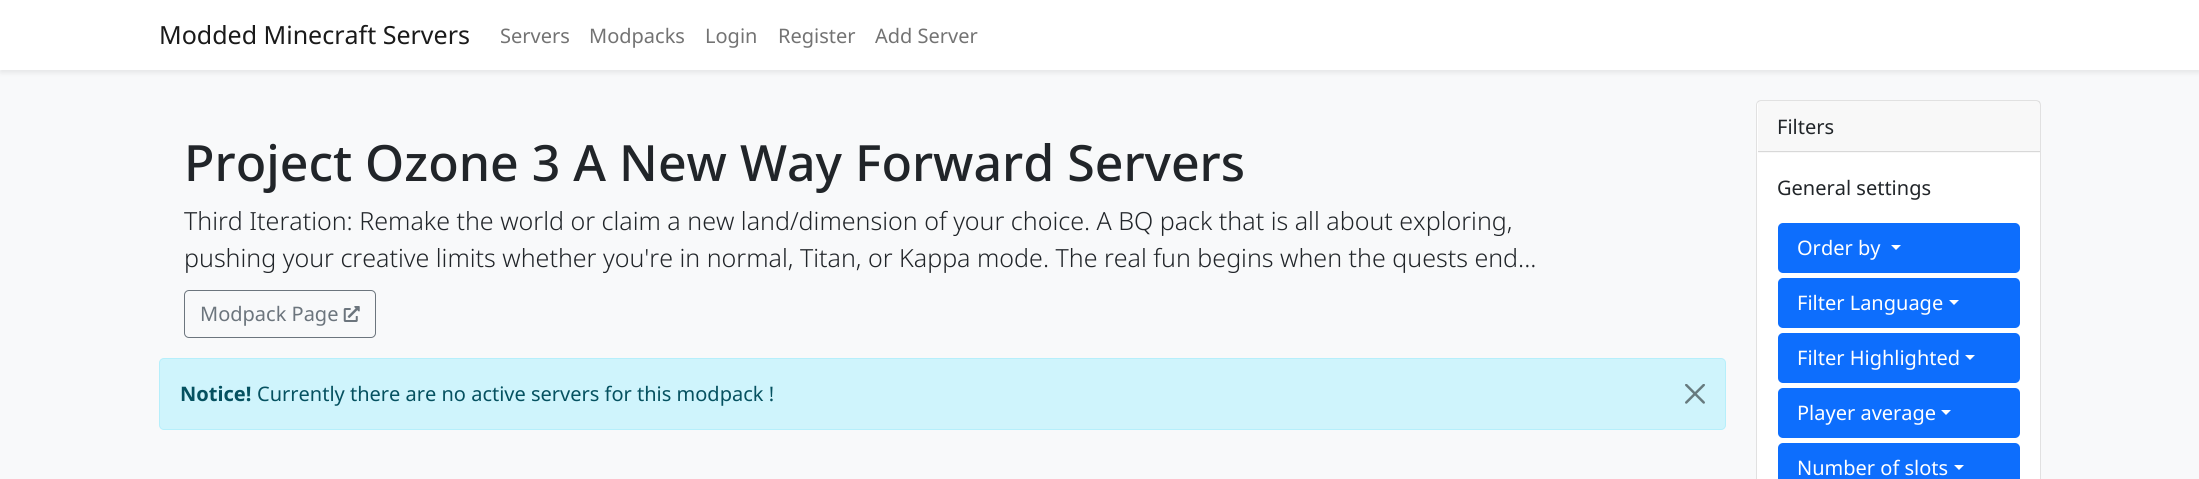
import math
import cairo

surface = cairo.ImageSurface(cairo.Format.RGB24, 2199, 479)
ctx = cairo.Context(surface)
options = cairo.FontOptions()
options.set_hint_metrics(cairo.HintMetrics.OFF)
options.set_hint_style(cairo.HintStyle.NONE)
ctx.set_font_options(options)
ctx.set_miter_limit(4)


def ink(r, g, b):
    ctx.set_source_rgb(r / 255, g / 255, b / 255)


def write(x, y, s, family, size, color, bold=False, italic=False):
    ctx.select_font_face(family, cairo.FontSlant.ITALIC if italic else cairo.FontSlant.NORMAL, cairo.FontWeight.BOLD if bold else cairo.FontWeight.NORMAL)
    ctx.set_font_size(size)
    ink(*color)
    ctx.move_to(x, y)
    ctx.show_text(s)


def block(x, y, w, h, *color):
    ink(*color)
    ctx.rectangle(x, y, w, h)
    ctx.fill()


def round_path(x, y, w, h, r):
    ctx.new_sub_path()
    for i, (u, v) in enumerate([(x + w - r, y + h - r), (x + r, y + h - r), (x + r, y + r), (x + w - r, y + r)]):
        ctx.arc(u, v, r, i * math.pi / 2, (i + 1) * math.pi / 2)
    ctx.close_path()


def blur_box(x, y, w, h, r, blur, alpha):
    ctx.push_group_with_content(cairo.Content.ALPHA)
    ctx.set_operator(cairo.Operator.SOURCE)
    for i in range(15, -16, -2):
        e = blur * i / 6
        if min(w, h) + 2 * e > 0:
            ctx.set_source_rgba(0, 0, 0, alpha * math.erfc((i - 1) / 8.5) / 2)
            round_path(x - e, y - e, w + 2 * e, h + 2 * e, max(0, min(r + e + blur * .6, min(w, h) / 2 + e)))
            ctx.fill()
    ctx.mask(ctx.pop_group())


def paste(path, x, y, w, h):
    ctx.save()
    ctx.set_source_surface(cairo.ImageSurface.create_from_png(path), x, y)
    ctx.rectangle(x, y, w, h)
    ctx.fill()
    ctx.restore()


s1 = dict(family="Noto Sans", size=25, color=(26, 26, 26))
s2 = dict(family="Noto Sans", size=20, color=(115, 115, 115))
s3 = dict(family="Noto Sans Medium", size=50, color=(33, 37, 41))
s4 = dict(family="Noto Sans Light", size=25, color=(33, 37, 41))
s5 = dict(family="Noto Sans", size=20, color=(108, 117, 125))
s6 = dict(family="Noto Sans", size=20, color=(5, 81, 96), bold=True)
s7 = dict(family="Noto Sans", size=20, color=(5, 81, 96))
s8 = dict(family="Noto Sans", size=20, color=(33, 37, 41))
s9 = dict(family="Noto Sans", size=20, color=(255, 255, 255))

ink(248, 249, 250)
ctx.paint()
ink(0, 0, 0)
blur_box(0, 3, 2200, 70, 0, 2.5, 0.07)
block(0, 0, 2199, 70, 255, 255, 255)
write(159, 44, "Modded Minecraft Servers", **s1)
write(500, 43, "Servers", **s2)
write(589, 43, "Modpacks", **s2)
write(705, 43, "Login", **s2)
write(778, 43, "Register", **s2)
write(875, 43, "Add Server", **s2)
write(184, 181, "Project Ozone 3 A New Way Forward Servers", **s3)
write(184, 230, "Third Iteration: Remake the world or claim a new land/dimension of your choice. A BQ pack that is all about exploring,", **s4)
write(184, 267, "pushing your creative limits whether you're in normal, Titan, or Kappa mode. The real fun begins when the quests end...", **s4)
round_path(184.5, 290.5, 191, 47, 4.5)
ink(108, 117, 125)
ctx.set_line_width(1)
ctx.stroke()
write(200, 321, "Modpack Page", **s5)
paste("pic1.png", 343, 306, 17, 16)
ink(207, 244, 252)
round_path(159.5, 358.5, 1566, 71, 4.5)
ctx.fill_preserve()
ink(182, 239, 251)
ctx.stroke()
write(180, 401, "Notice!", **s6)
write(257, 401, "Currently there are no active servers for this modpack !", **s7)
paste("pic2.png", 1685, 384, 20, 20)
ink(255, 255, 255)
round_path(1756, 100, 285, 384, 5)
ctx.fill()
round_path(1756.5, 100.5, 284, 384, 4.5)
ctx.set_source_rgba(0, 0, 0, 0.12)
ctx.stroke()
ctx.set_source_rgba(0, 0, 0, 0.03)
ctx.rectangle(1758, 101, 282, 52)
ctx.fill()
block(1758, 151, 282, 1, 216, 216, 216)
write(1777, 134, "Filters", **s8)
write(1777, 195, "General settings", **s8)
ink(13, 110, 253)
round_path(1778, 223, 242, 50, 5)
ctx.fill()
write(1797, 255, "Order by", **s9)
ctx.new_path()
ctx.move_to(1891, 245)
ctx.line_to(1901, 245)
ctx.line_to(1896, 250)
ctx.close_path()
ctx.fill()
ink(13, 110, 253)
round_path(1778, 278, 242, 50, 5)
ctx.fill()
write(1797, 310, "Filter Language", **s9)
ctx.new_path()
ctx.move_to(1949, 300)
ctx.line_to(1959, 300)
ctx.line_to(1954, 305)
ctx.close_path()
ctx.fill()
ink(13, 110, 253)
round_path(1778, 333, 242, 50, 5)
ctx.fill()
write(1797, 365, "Filter Highlighted", **s9)
ctx.new_path()
ctx.move_to(1965, 355)
ctx.line_to(1975, 355)
ctx.line_to(1970, 360)
ctx.close_path()
ctx.fill()
ink(13, 110, 253)
round_path(1778, 388, 242, 50, 5)
ctx.fill()
write(1797, 420, "Player average", **s9)
ctx.new_path()
ctx.move_to(1941, 410)
ctx.line_to(1951, 410)
ctx.line_to(1946, 415)
ctx.close_path()
ctx.fill()
ink(13, 110, 253)
round_path(1778, 443, 242, 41, 5)
ctx.fill()
write(1797, 475, "Number of slots", **s9)
ctx.new_path()
ctx.move_to(1954, 465)
ctx.line_to(1964, 465)
ctx.line_to(1959, 470)
ctx.close_path()
ctx.fill()
surface.write_to_png("screenshot.png")
